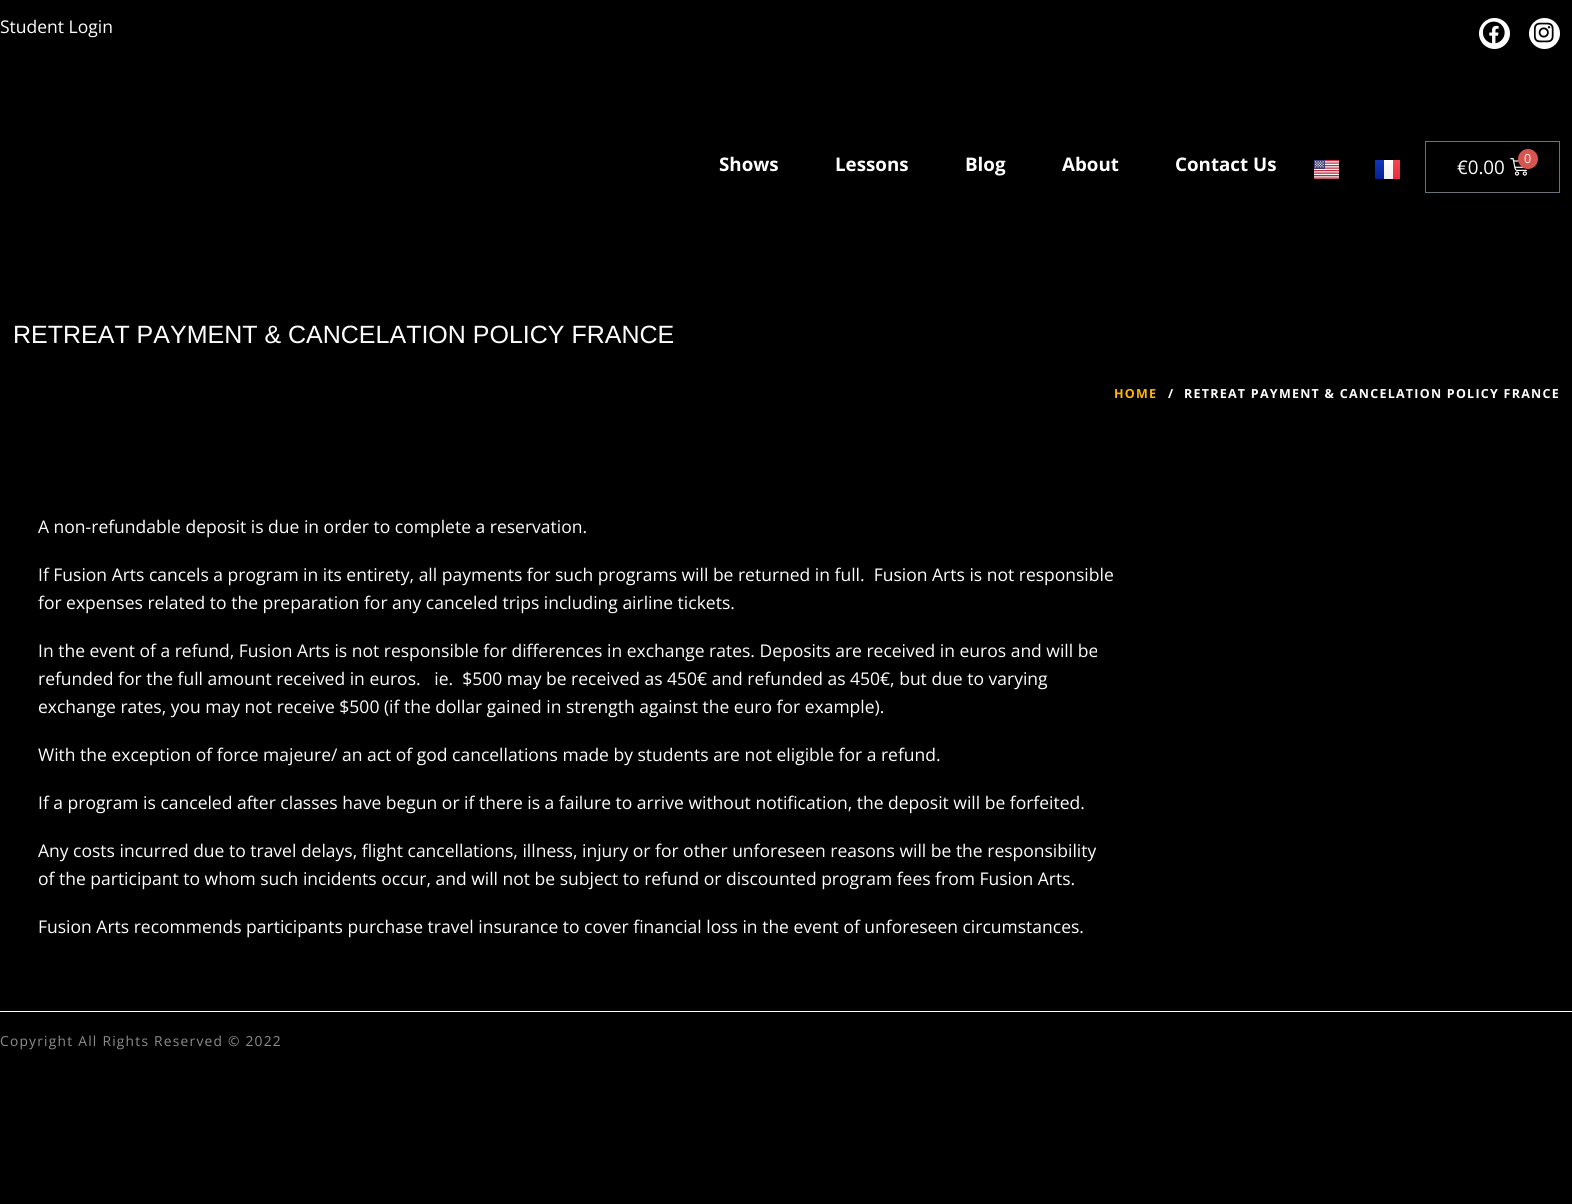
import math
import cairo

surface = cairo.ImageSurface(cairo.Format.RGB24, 1572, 1204)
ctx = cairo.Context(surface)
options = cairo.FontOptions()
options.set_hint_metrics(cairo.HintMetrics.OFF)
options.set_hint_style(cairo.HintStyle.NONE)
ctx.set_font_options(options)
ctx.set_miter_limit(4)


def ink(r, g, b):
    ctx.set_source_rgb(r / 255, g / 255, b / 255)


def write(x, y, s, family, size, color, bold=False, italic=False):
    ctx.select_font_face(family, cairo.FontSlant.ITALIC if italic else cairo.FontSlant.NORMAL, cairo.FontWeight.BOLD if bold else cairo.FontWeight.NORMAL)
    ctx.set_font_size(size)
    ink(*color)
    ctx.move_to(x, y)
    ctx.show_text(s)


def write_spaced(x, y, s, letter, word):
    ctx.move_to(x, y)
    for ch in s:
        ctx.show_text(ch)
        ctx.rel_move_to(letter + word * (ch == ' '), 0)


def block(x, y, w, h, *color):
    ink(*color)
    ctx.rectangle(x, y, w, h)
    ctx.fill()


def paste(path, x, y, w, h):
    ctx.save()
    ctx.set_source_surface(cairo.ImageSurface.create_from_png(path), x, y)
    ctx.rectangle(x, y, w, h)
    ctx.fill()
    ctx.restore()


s1 = dict(family="Open Sans", size=17.5, color=(255, 255, 255))
s2 = dict(family="Open Sans", size=18.75, color=(255, 255, 255), bold=True)
s3 = dict(family="Open Sans", size=12.5, color=(255, 255, 255))
s4 = dict(family="Open Sans", size=18.75, color=(255, 255, 255))
s5 = dict(family="Liberation Sans", size=25, color=(255, 255, 255))

ink(0, 0, 0)
ctx.paint()
write(0, 33, "Student Login", **s1)
ctx.new_path()
ctx.arc(1494.5, 33.5, 15.5, 0, 2 * math.pi)
ctx.fill()
paste("pic1.png", 1483, 21, 22, 23)
ctx.arc(1544.5, 33.5, 15.5, 0, 2 * math.pi)
ctx.fill()
paste("pic2.png", 1533, 22, 21, 21)
write(719, 171, "Shows", **s2)
write(835, 171, "Lessons", **s2)
write(965, 171, "Blog", **s2)
write(1062, 171, "About", **s2)
write(1175, 171, "Contact Us", **s2)
paste("pic3.png", 1314, 160, 25, 19)
gradient = cairo.LinearGradient(1379, 160, 1379, 179)
gradient.add_color_stop_rgba(0, 0.063, 0.208, 0.733, 1)
gradient.add_color_stop_rgba(1, 0.016, 0.137, 0.588, 1)
ctx.set_source(gradient)
ctx.rectangle(1375, 160, 9, 19)
ctx.fill()
gradient = cairo.LinearGradient(1388, 160, 1388, 179)
gradient.add_color_stop_rgba(0, 1, 1, 1, 1)
gradient.add_color_stop_rgba(1, 0.941, 0.941, 0.941, 1)
ctx.set_source(gradient)
ctx.rectangle(1384, 160, 9, 19)
ctx.fill()
gradient = cairo.LinearGradient(1394, 160, 1394, 179)
gradient.add_color_stop_rgba(0, 0.957, 0.275, 0.325, 1)
gradient.add_color_stop_rgba(1, 0.933, 0.165, 0.224, 1)
ctx.set_source(gradient)
ctx.rectangle(1393, 160, 7, 19)
ctx.fill()
ctx.rectangle(1425.5, 141.5, 134, 51)
ink(105, 114, 125)
ctx.set_line_width(1)
ctx.stroke()
paste("pic4.png", 1510, 158, 17, 18)
ink(217, 83, 79)
ctx.arc(1528, 159, 10, 0, 2 * math.pi)
ctx.fill()
write(1524, 163, "0", **s3)
write(1457, 174, "€0.00", **s4)
write(13, 343, "RETREAT PAYMENT & CANCELATION POLICY FRANCE", **s5)
ctx.select_font_face("Open Sans", cairo.FontSlant.NORMAL, cairo.FontWeight.BOLD)
ctx.set_font_size(12.5)
ink(255, 182, 6)
write_spaced(1114, 398, "HOME", 1.25, 0)
ink(255, 255, 255)
write_spaced(1168, 398, "/", 1.25, 0)
write_spaced(1184, 398, "RETREAT PAYMENT & CANCELATION POLICY FRANCE", 1.25, 0)
write(38, 533, "A non-refundable deposit is due in order to complete a reservation.", **s1)
write(38, 581, "If Fusion Arts cancels a program in its entirety, all payments for such programs will be returned in full.  Fusion Arts is not responsible", **s1)
write(38, 609, "for expenses related to the preparation for any canceled trips including airline tickets.", **s1)
write(38, 657, "In the event of a refund, Fusion Arts is not responsible for differences in exchange rates. Deposits are received in euros and will be", **s1)
write(38, 685, "refunded for the full amount received in euros.   ie.  $500 may be received as 450€ and refunded as 450€, but due to varying", **s1)
write(38, 713, "exchange rates, you may not receive $500 (if the dollar gained in strength against the euro for example).", **s1)
write(38, 761, "With the exception of force majeure/ an act of god cancellations made by students are not eligible for a refund.", **s1)
write(38, 809, "If a program is canceled after classes have begun or if there is a failure to arrive without notification, the deposit will be forfeited.", **s1)
write(38, 857, "Any costs incurred due to travel delays, flight cancellations, illness, injury or for other unforeseen reasons will be the responsibility", **s1)
write(38, 885, "of the participant to whom such incidents occur, and will not be subject to refund or discounted program fees from Fusion Arts.", **s1)
write(38, 933, "Fusion Arts recommends participants purchase travel insurance to cover financial loss in the event of unforeseen circumstances.", **s1)
block(0, 1011, 1572, 1, 255, 255, 255)
ctx.set_font_size(13.75)
ink(140, 142, 145)
write_spaced(0, 1046, "Copyright All Rights Reserved © 2022", 1.25, 0)
surface.write_to_png("screenshot.png")
